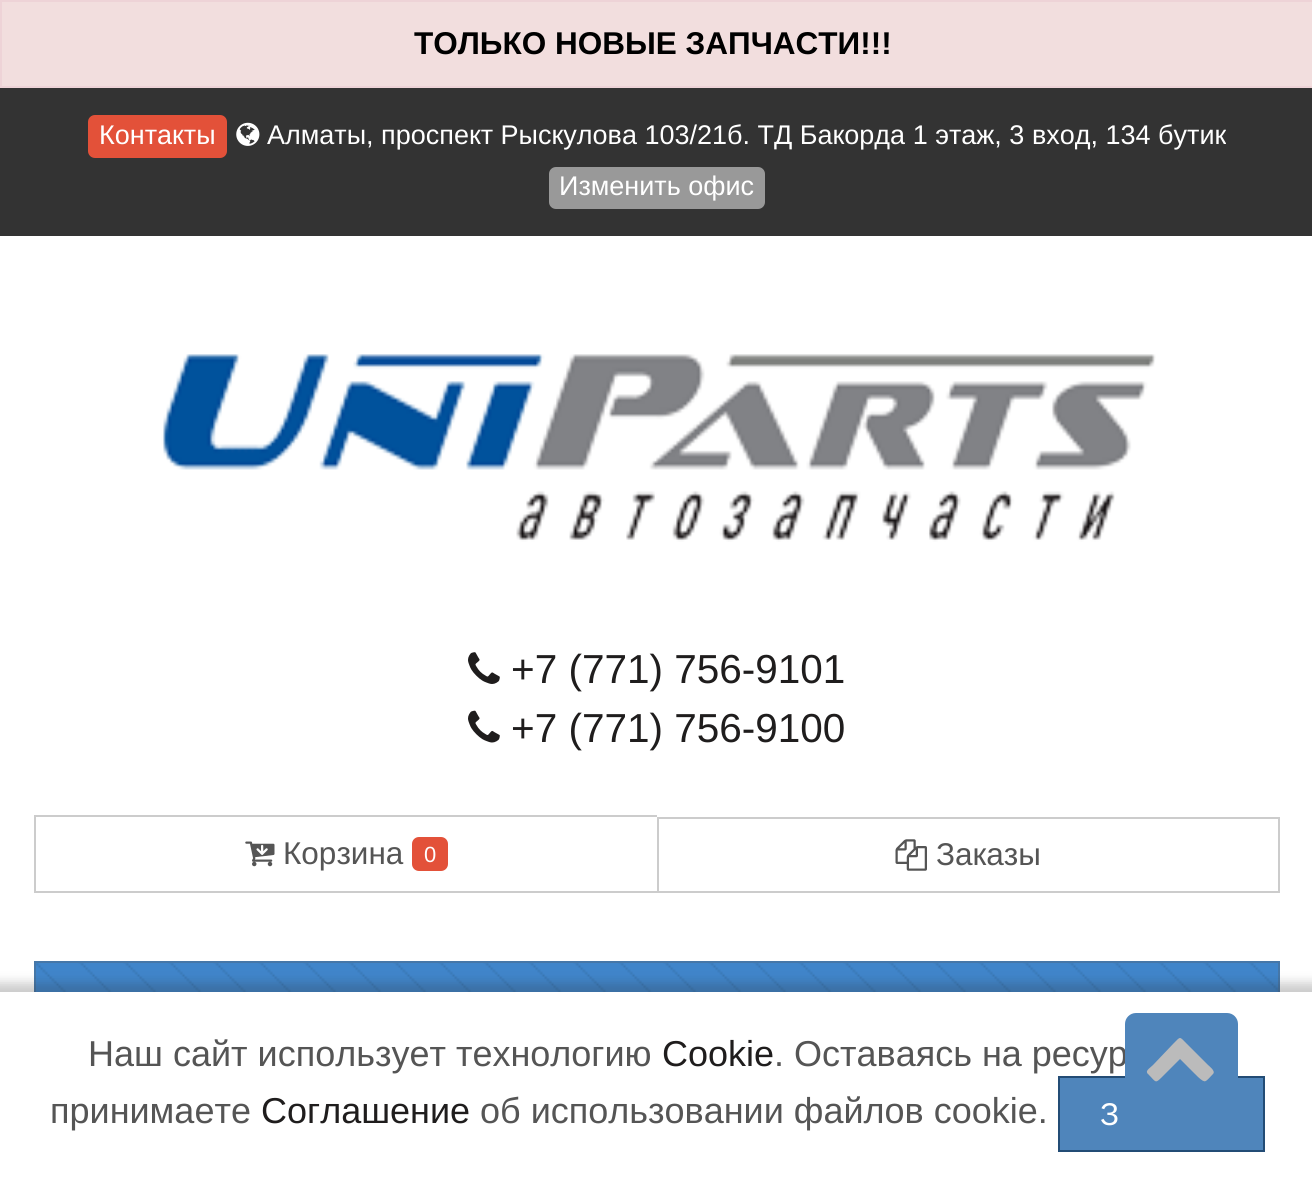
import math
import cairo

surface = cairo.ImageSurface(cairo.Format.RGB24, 1312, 1192)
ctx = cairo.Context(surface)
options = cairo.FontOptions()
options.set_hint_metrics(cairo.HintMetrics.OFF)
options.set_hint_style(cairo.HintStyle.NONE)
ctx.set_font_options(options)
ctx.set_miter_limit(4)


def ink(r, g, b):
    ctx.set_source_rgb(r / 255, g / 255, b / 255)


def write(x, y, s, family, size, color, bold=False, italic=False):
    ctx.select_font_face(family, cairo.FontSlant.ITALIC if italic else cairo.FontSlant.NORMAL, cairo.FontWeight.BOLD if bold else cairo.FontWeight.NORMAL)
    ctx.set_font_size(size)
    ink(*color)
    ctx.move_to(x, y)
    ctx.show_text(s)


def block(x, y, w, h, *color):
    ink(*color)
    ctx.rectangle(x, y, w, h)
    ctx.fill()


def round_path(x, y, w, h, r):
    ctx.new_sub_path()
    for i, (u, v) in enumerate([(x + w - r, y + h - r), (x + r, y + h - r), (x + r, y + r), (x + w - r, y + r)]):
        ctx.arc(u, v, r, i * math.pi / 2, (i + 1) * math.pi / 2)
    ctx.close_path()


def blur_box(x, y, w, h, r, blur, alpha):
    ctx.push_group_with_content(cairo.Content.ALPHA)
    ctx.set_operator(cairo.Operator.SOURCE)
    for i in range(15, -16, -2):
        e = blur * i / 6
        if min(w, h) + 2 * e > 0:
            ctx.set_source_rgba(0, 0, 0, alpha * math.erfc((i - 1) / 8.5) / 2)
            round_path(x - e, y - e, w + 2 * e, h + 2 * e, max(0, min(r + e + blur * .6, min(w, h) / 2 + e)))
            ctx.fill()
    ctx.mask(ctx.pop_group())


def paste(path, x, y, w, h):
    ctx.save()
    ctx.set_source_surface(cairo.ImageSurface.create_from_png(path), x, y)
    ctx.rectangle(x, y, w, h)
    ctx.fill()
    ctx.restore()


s1 = dict(family="Liberation Sans", size=31.5, color=(0, 0, 0), bold=True)
s2 = dict(family="Liberation Sans", size=27, color=(255, 255, 255))
s3 = dict(family="Liberation Sans", size=40.5, color=(31, 29, 29))
s4 = dict(family="Liberation Sans", size=31.5, color=(85, 85, 85))
s5 = dict(family="Liberation Sans", size=22, color=(255, 255, 255))
s6 = dict(family="Liberation Sans", size=36, color=(85, 85, 85))
s7 = dict(family="Liberation Sans", size=36, color=(31, 29, 29))
s8 = dict(family="Liberation Sans", size=31.5, color=(255, 255, 255))

ink(255, 255, 255)
ctx.paint()
ink(242, 222, 222)
ctx.rectangle(1, 1, 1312, 86)
ctx.fill_preserve()
ink(238, 211, 215)
ctx.stroke()
write(414, 54, "ТОЛЬКО НОВЫЕ ЗАПЧАСТИ!!!", **s1)
block(0, 88, 1312, 148, 51, 51, 51)
ink(227, 81, 57)
round_path(88, 115, 139, 43, 7)
ctx.fill()
write(99, 144, "Контакты", **s2)
paste("pic1.png", 236, 122, 24, 24)
write(267, 144, "Алматы, проспект Рыскулова 103/21б. ТД Бакорда 1 этаж, 3 вход, 134 бутик", **s2)
ink(153, 153, 153)
round_path(549, 167, 216, 42, 7)
ctx.fill()
write(559, 195, "Изменить офис", **s2)
paste("pic2.png", 161, 354, 995, 188)
paste("pic3.png", 468, 652, 32, 32)
write(511, 683, "+7 (771) 756-9101", **s3)
paste("pic4.png", 468, 710, 32, 33)
write(511, 742, "+7 (771) 756-9100", **s3)
block(34, 815, 623, 2, 204, 204, 204)
block(34, 891, 623, 2, 204, 204, 204)
block(34, 815, 2, 78, 204, 204, 204)
paste("pic5.png", 245, 841, 30, 26)
write(283, 864, "Корзина", **s4)
ink(227, 81, 57)
round_path(412, 837, 36, 34, 7)
ctx.fill()
write(424, 862, "0", **s5)
ctx.rectangle(658, 818, 621, 74)
ink(204, 204, 204)
ctx.stroke()
paste("pic6.png", 895, 839, 32, 32)
write(936, 865, "Заказы", **s4)
block(36, 963, 1242, 29, 64, 133, 202)
paste("pic7.png", 36, 963, 1242, 29)
ctx.rectangle(35, 962, 1244, 146)
ink(70, 119, 168)
ctx.stroke()
ink(44, 44, 44)
blur_box(-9, 983, 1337, 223, 0, 5.5, 0.25)
block(0, 992, 1312, 200, 255, 255, 255)
write(88, 1066, "Наш сайт использует технологию", **s6)
write(662, 1066, "Cookie", **s7)
write(774, 1066, ". Оставаясь на ресур", **s6)
write(50, 1123, "принимаете", **s6)
write(261, 1123, "Соглашение", **s7)
write(480, 1123, "об использовании файлов cookie.", **s6)
ink(79, 133, 187)
ctx.rectangle(1059, 1077, 205, 74)
ctx.fill_preserve()
ink(35, 76, 117)
ctx.stroke()
write(1100, 1125, "З", **s8)
ink(79, 133, 187)
round_path(1125, 1013, 113, 112, 11)
ctx.fill()
ink(187, 187, 187)
ctx.new_path()
ctx.move_to(1213, 1074)
ctx.curve_to(1205, 1082, 1206, 1084, 1198, 1077)
ctx.line_to(1180, 1059)
ctx.line_to(1162, 1077)
ctx.curve_to(1155, 1084, 1156, 1082, 1149, 1075)
ctx.curve_to(1144, 1071, 1149, 1069, 1153, 1065)
ctx.line_to(1173, 1044)
ctx.curve_to(1181, 1036, 1179, 1036, 1187, 1044)
ctx.line_to(1208, 1065)
ctx.curve_to(1209, 1066, 1216, 1071, 1213, 1074)
ctx.close_path()
ctx.fill()
surface.write_to_png("screenshot.png")
